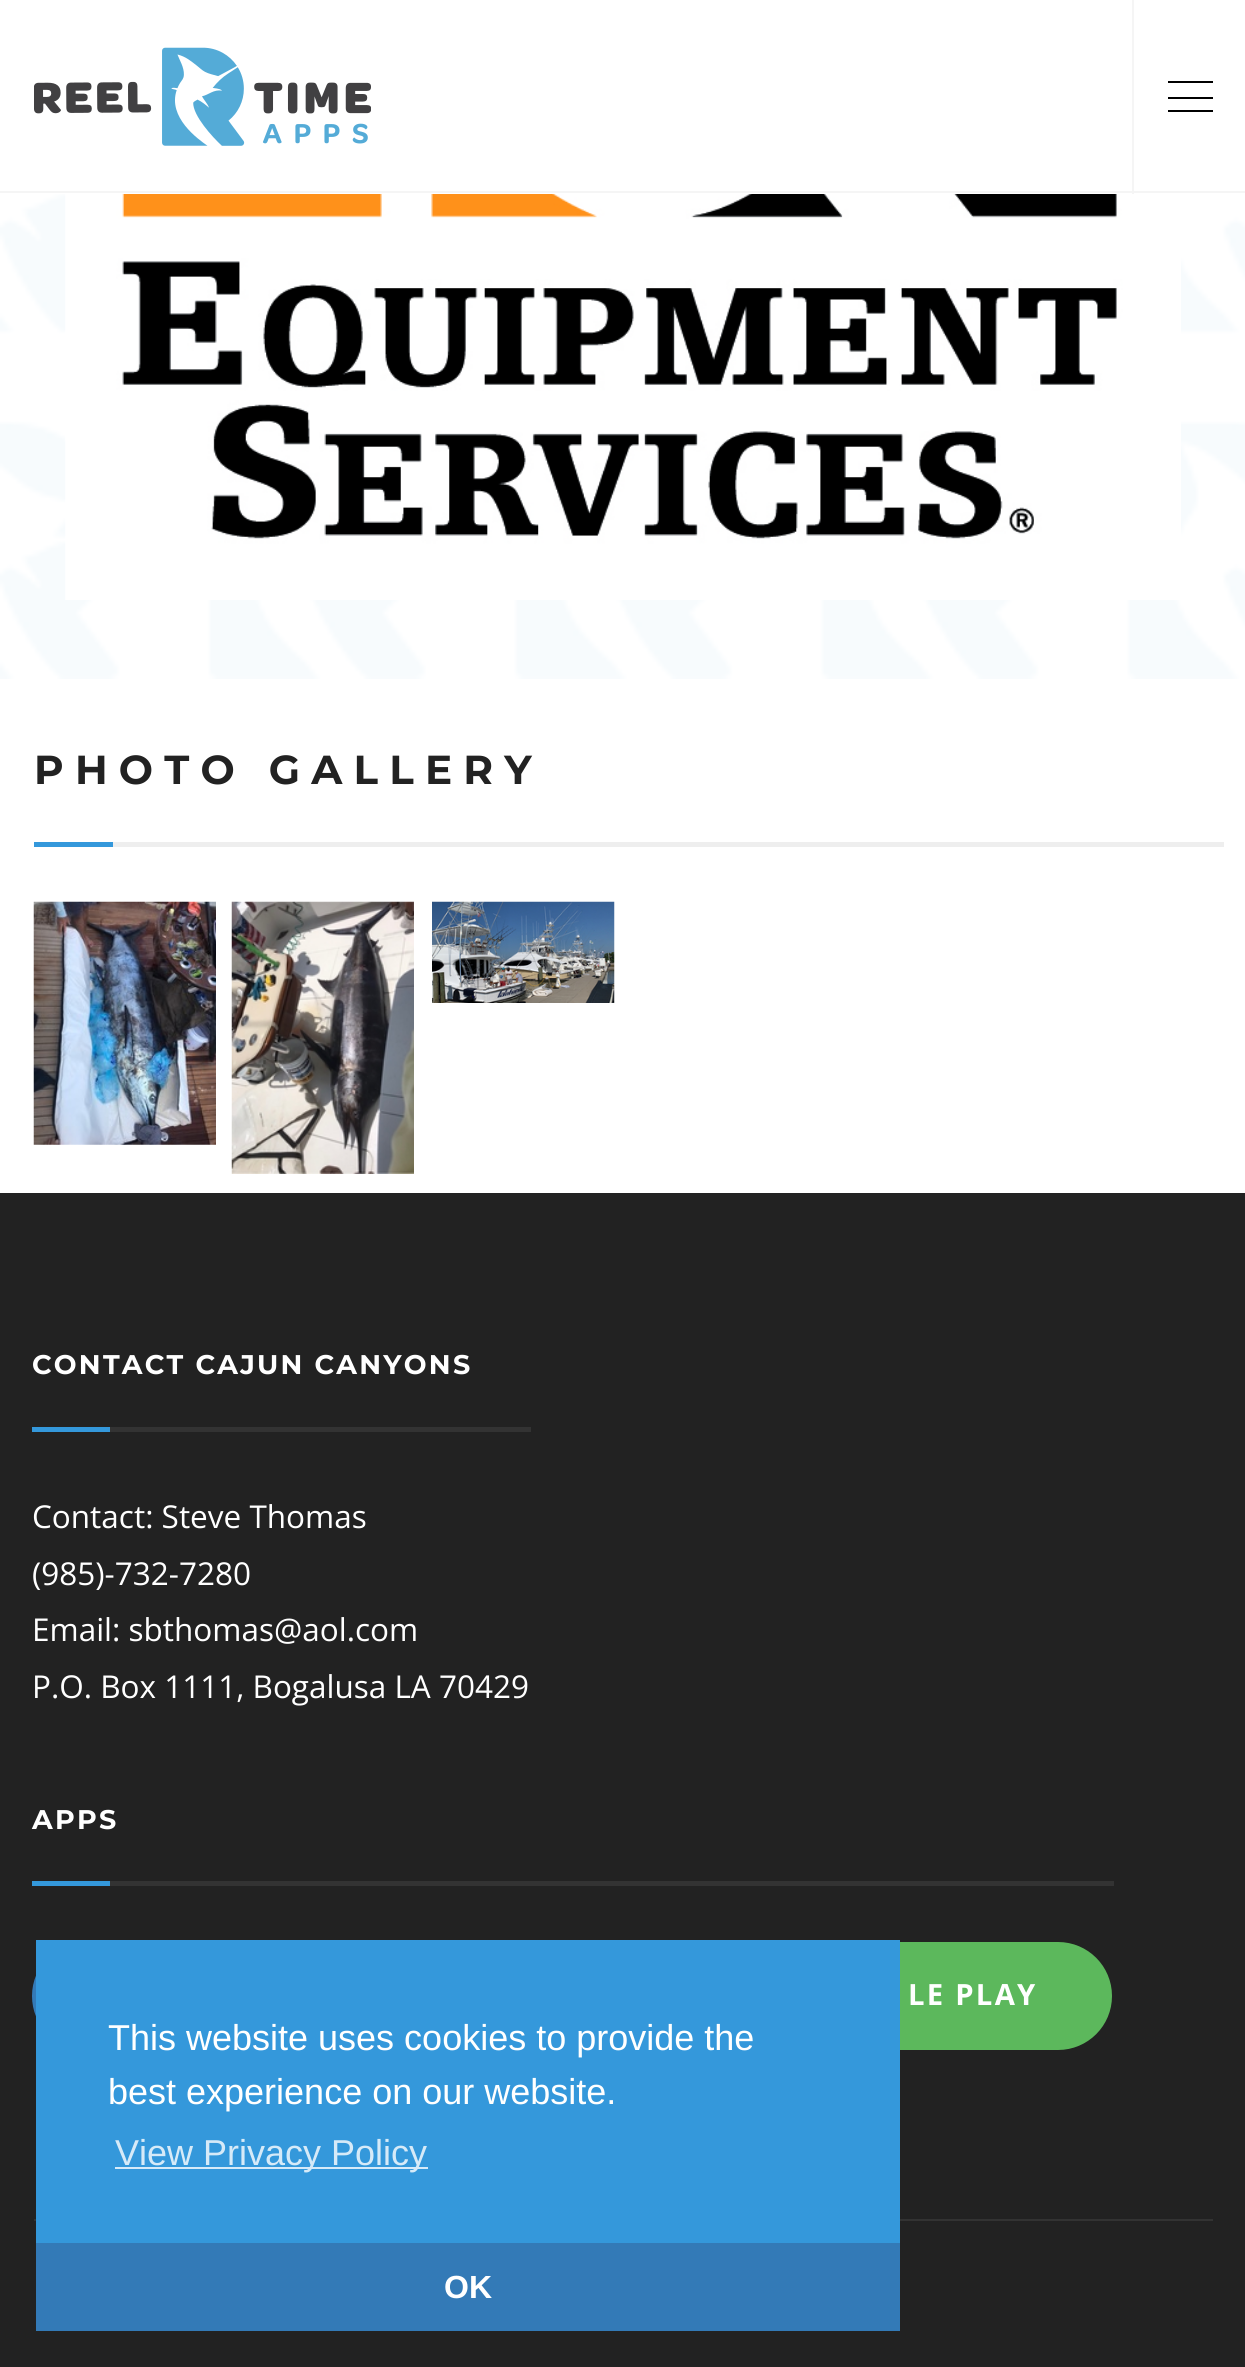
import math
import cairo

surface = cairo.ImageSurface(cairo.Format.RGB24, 1245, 2367)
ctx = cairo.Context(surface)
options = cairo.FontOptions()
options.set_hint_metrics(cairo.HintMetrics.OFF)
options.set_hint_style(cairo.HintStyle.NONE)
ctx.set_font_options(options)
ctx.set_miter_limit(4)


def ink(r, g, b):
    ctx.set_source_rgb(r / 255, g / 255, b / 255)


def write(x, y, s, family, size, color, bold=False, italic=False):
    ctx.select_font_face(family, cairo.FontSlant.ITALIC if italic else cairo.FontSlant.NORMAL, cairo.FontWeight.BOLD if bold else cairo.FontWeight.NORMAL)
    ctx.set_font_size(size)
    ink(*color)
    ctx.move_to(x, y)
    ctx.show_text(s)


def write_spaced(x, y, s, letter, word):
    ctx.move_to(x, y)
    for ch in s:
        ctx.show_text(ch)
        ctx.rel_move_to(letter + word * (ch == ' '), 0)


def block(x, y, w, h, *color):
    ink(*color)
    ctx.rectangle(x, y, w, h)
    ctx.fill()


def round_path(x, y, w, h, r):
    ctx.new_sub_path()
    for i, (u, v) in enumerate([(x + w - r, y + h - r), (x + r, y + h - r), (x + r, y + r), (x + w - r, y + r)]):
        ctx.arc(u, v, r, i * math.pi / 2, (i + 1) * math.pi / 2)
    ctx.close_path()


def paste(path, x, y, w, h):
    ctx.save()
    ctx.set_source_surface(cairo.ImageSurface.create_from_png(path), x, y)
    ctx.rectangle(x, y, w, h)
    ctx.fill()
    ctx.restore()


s1 = dict(family="Open Sans", size=31.5, color=(255, 255, 255))
s2 = dict(family="Liberation Sans", size=36, color=(255, 255, 255))
s3 = dict(family="Liberation Sans", size=36, color=(214, 234, 248))
s4 = dict(family="Liberation Sans", size=32, color=(255, 255, 255), bold=True)

ink(255, 255, 255)
ctx.paint()
block(0, 191, 1245, 2, 245, 245, 245)
paste("pic1.png", 34, 47, 337, 99)
block(1132, 0, 2, 194, 245, 245, 245)
block(1168, 81, 45, 2, 0, 0, 0)
block(1168, 97, 45, 2, 0, 0, 0)
block(1168, 110, 45, 2, 0, 0, 0)
paste("pic2.png", 0, 194, 1245, 485)
paste("pic3.png", 65, 194, 1116, 406)
ctx.select_font_face("Montserrat Thin")
ctx.set_font_size(40.5)
ink(34, 34, 34)
write_spaced(34, 784, "PHOTO GALLERY", 11.25, 0)
block(34, 842, 79, 5, 52, 152, 219)
block(113, 842, 1111, 5, 238, 238, 238)
paste("pic4.png", 33, 901, 183, 244)
paste("pic5.png", 231, 901, 183, 273)
paste("pic6.png", 432, 901, 183, 102)
block(0, 1193, 1245, 1174, 34, 34, 34)
ctx.set_font_size(27)
ink(255, 255, 255)
write_spaced(32, 1374, "CONTACT CAJUN CANYONS", 2.25, 0)
block(32, 1427, 78, 5, 52, 152, 219)
block(110, 1427, 421, 5, 51, 51, 51)
write(32, 1528, "Contact: Steve Thomas", **s1)
write(32, 1585, "(985)-732-7280", **s1)
write(32, 1641, "Email: sbthomas@aol.com", **s1)
write(32, 1698, "P.O. Box 1111, Bogalusa LA 70429", **s1)
ctx.select_font_face("Montserrat Thin")
ctx.set_font_size(27)
write_spaced(32, 1829, "APPS", 2.25, 0)
block(32, 1881, 78, 5, 52, 152, 219)
block(110, 1881, 1004, 5, 51, 51, 51)
round_path(34.5, 1944.5, 492, 103, 51.5)
ink(51, 122, 183)
ctx.set_line_width(5)
ctx.stroke()
ink(92, 184, 92)
round_path(538.5, 1944.5, 571, 103, 51.5)
ctx.fill_preserve()
ctx.stroke()
ctx.select_font_face("Open Sans", cairo.FontSlant.NORMAL, cairo.FontWeight.BOLD)
ctx.set_font_size(29.25)
ink(255, 255, 255)
write_spaced(908, 2005, "LE PLAY", 2.25, 0)
block(34, 2219, 1179, 2, 51, 51, 51)
block(36, 1940, 864, 303, 52, 152, 219)
write(108, 2050, "This website uses cookies to provide the", **s2)
write(108, 2104, "best experience on our website.", **s2)
block(115, 2167, 313, 2, 214, 234, 248)
write(115, 2165, "View Privacy Policy", **s3)
block(36, 2243, 864, 88, 51, 122, 183)
write(444, 2298, "OK", **s4)
surface.write_to_png("screenshot.png")
